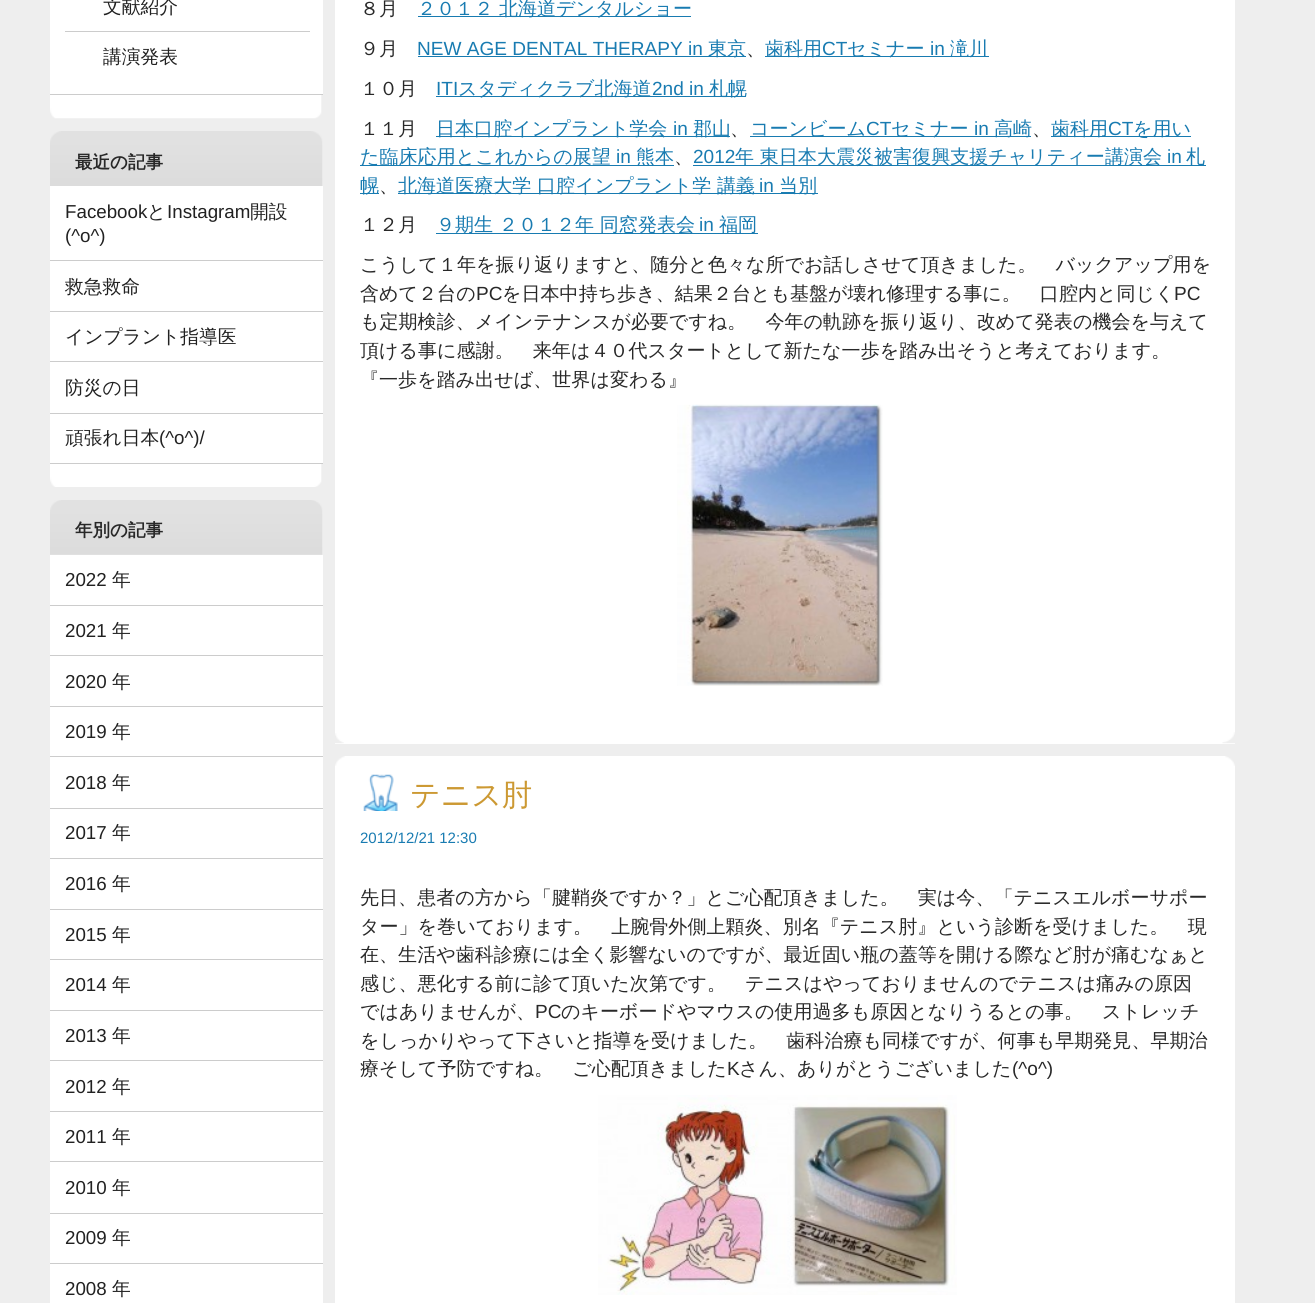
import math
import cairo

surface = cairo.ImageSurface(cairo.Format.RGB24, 1315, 1303)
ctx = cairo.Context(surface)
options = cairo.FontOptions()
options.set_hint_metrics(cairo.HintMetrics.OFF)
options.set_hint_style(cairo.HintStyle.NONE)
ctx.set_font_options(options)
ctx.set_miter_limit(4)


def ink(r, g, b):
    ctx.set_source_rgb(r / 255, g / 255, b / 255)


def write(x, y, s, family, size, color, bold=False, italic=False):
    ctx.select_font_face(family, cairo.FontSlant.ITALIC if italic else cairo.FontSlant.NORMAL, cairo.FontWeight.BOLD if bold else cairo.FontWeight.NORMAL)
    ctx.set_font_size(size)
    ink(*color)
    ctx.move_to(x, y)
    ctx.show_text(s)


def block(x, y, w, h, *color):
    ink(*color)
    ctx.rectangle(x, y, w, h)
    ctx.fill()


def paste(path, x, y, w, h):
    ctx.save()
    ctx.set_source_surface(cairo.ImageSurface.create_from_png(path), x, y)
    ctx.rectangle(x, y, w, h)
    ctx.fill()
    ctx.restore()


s1 = dict(family="WenQuanYi Zen Hei Medium", size=18.75, color=(33, 33, 33))
s2 = dict(family="WenQuanYi Zen Hei", size=17.5, color=(40, 40, 40), bold=True)
s3 = dict(family="Liberation Sans", size=18.75, color=(33, 33, 33))
s4 = dict(family="WenQuanYi Zen Hei Medium", size=19.05, color=(40, 40, 40))
s5 = dict(family="WenQuanYi Zen Hei Medium", size=19.05, color=(24, 123, 177))
s6 = dict(family="Liberation Sans", size=19.05, color=(24, 123, 177))
s7 = dict(family="Liberation Sans", size=19.05, color=(40, 40, 40))
s8 = dict(family="WenQuanYi Zen Hei Medium", size=30, color=(204, 153, 51))
s9 = dict(family="Liberation Sans", size=15, color=(24, 123, 177))

ink(238, 238, 238)
ctx.paint()
block(50, 0, 273, 94, 255, 255, 255)
write(103, 13, "文献紹介", **s1)
block(65, 31, 245, 1, 204, 204, 204)
write(103, 63, "講演発表", **s1)
paste("pic1.png", 50, 95, 272, 24)
block(50, 94, 273, 1, 204, 204, 204)
paste("pic2.png", 50, 131, 273, 55)
write(75, 168, "最近の記事", **s2)
block(50, 186, 273, 277, 255, 255, 255)
write(65, 218, "Facebook", **s3)
write(147, 218, "と", **s1)
write(167, 218, "Instagram", **s3)
write(250, 218, "開設", **s1)
write(65, 242, "(^o^)", **s3)
block(50, 260, 273, 1, 204, 204, 204)
write(65, 293, "救急救命", **s1)
block(50, 311, 273, 1, 204, 204, 204)
write(65, 343, "インプラント指導医", **s1)
block(50, 361, 273, 1, 204, 204, 204)
write(65, 394, "防災の日", **s1)
block(50, 413, 273, 1, 204, 204, 204)
write(65, 444, "頑張れ日本", **s1)
write(159, 444, "(^o^)/", **s3)
paste("pic3.png", 50, 464, 272, 23)
block(50, 463, 273, 1, 204, 204, 204)
paste("pic4.png", 50, 500, 273, 55)
write(75, 536, "年別の記事", **s2)
block(50, 555, 273, 748, 255, 255, 255)
write(65, 586, "2022", **s3)
write(112, 586, "年", **s1)
block(50, 605, 273, 1, 204, 204, 204)
write(65, 637, "2021", **s3)
write(112, 637, "年", **s1)
block(50, 655, 273, 1, 204, 204, 204)
write(65, 688, "2020", **s3)
write(112, 688, "年", **s1)
block(50, 706, 273, 1, 204, 204, 204)
write(65, 738, "2019", **s3)
write(112, 738, "年", **s1)
block(50, 756, 273, 1, 204, 204, 204)
write(65, 789, "2018", **s3)
write(112, 789, "年", **s1)
block(50, 808, 273, 1, 204, 204, 204)
write(65, 839, "2017", **s3)
write(112, 839, "年", **s1)
block(50, 858, 273, 1, 204, 204, 204)
write(65, 890, "2016", **s3)
write(112, 890, "年", **s1)
block(50, 909, 273, 1, 204, 204, 204)
write(65, 941, "2015", **s3)
write(112, 941, "年", **s1)
block(50, 959, 273, 1, 204, 204, 204)
write(65, 991, "2014", **s3)
write(112, 991, "年", **s1)
block(50, 1010, 273, 1, 204, 204, 204)
write(65, 1042, "2013", **s3)
write(112, 1042, "年", **s1)
block(50, 1060, 273, 1, 204, 204, 204)
write(65, 1093, "2012", **s3)
write(112, 1093, "年", **s1)
block(50, 1111, 273, 1, 204, 204, 204)
write(65, 1143, "2011", **s3)
write(112, 1143, "年", **s1)
block(50, 1161, 273, 1, 204, 204, 204)
write(65, 1194, "2010", **s3)
write(112, 1194, "年", **s1)
block(50, 1213, 273, 1, 204, 204, 204)
write(65, 1244, "2009", **s3)
write(112, 1244, "年", **s1)
block(50, 1263, 273, 1, 204, 204, 204)
write(65, 1295, "2008", **s3)
write(112, 1295, "年", **s1)
block(335, 0, 900, 744, 255, 255, 255)
paste("pic5.png", 335, 733, 9, 11)
paste("pic6.png", 1222, 732, 13, 12)
write(360, 15, "８月", **s4)
block(418, 16, 273, 1, 24, 123, 177)
write(417, 15, "２０１２ 北海道デンタルショー", **s5)
write(360, 55, "９月", **s4)
write(417, 55, "NEW AGE DENTAL THERAPY in", **s6)
block(418, 56, 328, 1, 24, 123, 177)
write(708, 55, "東京", **s5)
block(765, 56, 224, 1, 24, 123, 177)
write(765, 55, "歯科用", **s5)
write(822, 55, "CT", **s6)
write(847, 55, "セミナー", **s5)
write(930, 55, "in", **s6)
write(950, 55, "滝川", **s5)
write(746, 55, "、", **s4)
write(360, 95, "１０月", **s4)
write(436, 95, "ITI", **s6)
block(436, 96, 310, 1, 24, 123, 177)
write(458, 95, "スタディクラブ北海道", **s5)
write(652, 95, "2nd in", **s6)
write(709, 95, "札幌", **s5)
write(360, 135, "１１月", **s4)
block(436, 136, 294, 1, 24, 123, 177)
write(436, 135, "日本口腔インプラント学会", **s5)
write(673, 135, "in", **s6)
write(693, 135, "郡山", **s5)
write(730, 135, "、", **s4)
block(750, 136, 281, 1, 24, 123, 177)
write(750, 135, "コーンビーム", **s5)
write(866, 135, "CT", **s6)
write(891, 135, "セミナー", **s5)
write(974, 135, "in", **s6)
write(994, 135, "高崎", **s5)
write(1032, 135, "、", **s4)
block(1051, 136, 140, 1, 24, 123, 177)
write(1051, 135, "歯科用", **s5)
write(1108, 135, "CT", **s6)
write(1133, 135, "を用い", **s5)
block(360, 165, 314, 1, 24, 123, 177)
write(360, 163, "た臨床応用とこれからの展望", **s5)
write(616, 163, "in", **s6)
write(636, 163, "熊本", **s5)
write(693, 163, "2012", **s6)
block(693, 165, 513, 1, 24, 123, 177)
write(735, 163, "年 東日本大震災被害復興支援チャリティー講演会", **s5)
write(1167, 163, "in", **s6)
write(1186, 163, "札", **s5)
write(674, 163, "、", **s4)
block(360, 193, 19, 1, 24, 123, 177)
write(360, 192, "幌", **s5)
block(398, 193, 420, 1, 24, 123, 177)
write(398, 192, "北海道医療大学 口腔インプラント学 講義", **s5)
write(759, 192, "in", **s6)
write(779, 192, "当別", **s5)
write(379, 192, "、", **s4)
write(360, 231, "１２月", **s4)
block(436, 233, 322, 1, 24, 123, 177)
write(436, 231, "９期生 ２０１２年 同窓発表会", **s5)
write(699, 231, "in", **s6)
write(719, 231, "福岡", **s5)
write(360, 271, "こうして１年を振り返りますと、随分と色々な所でお話しさせて頂きました。　バックアップ用を", **s4)
write(360, 300, "含めて２台の", **s4)
write(476, 300, "PC", **s7)
write(502, 300, "を日本中持ち歩き、結果２台とも基盤が壊れ修理する事に。　口腔内と同じく", **s4)
write(1174, 300, "PC", **s7)
write(360, 328, "も定期検診、メインテナンスが必要ですね。　今年の軌跡を振り返り、改めて発表の機会を与えて", **s4)
write(360, 357, "頂ける事に感謝。　来年は４０代スタートとして新たな一歩を踏み出そうと考えております。", **s4)
write(360, 386, "『一歩を踏み出せば、世界は変わる』", **s4)
paste("pic7.png", 677, 404, 206, 282)
block(335, 756, 900, 547, 255, 255, 255)
paste("pic8.png", 335, 756, 10, 10)
paste("pic9.png", 1225, 756, 10, 10)
paste("pic10.png", 363, 774, 35, 37)
write(410, 805, "テニス肘", **s8)
write(360, 843, "2012/12/21 12:30", **s9)
write(360, 904, "先日、患者の方から「腱鞘炎ですか？」とご心配頂きました。　実は今、「テニスエルボーサポー", **s4)
write(360, 933, "ター」を巻いております。　上腕骨外側上顆炎、別名『テニス肘』という診断を受けました。　現", **s4)
write(360, 961, "在、生活や歯科診療には全く影響ないのですが、最近固い瓶の蓋等を開ける際など肘が痛むなぁと", **s4)
write(360, 990, "感じ、悪化する前に診て頂いた次第です。　テニスはやっておりませんのでテニスは痛みの原因", **s4)
write(360, 1018, "ではありませんが、", **s4)
write(535, 1018, "PC", **s7)
write(561, 1018, "のキーボードやマウスの使用過多も原因となりうるとの事。　ストレッチ", **s4)
write(360, 1047, "をしっかりやって下さいと指導を受けました。　歯科治療も同様ですが、何事も早期発見、早期治", **s4)
write(360, 1075, "療そして予防ですね。　ご心配頂きました", **s4)
write(727, 1075, "K", **s7)
write(739, 1075, "さん、ありがとうございました", **s4)
write(1012, 1075, "(^o^)", **s7)
paste("pic11.png", 598, 1095, 359, 200)
surface.write_to_png("screenshot.png")
